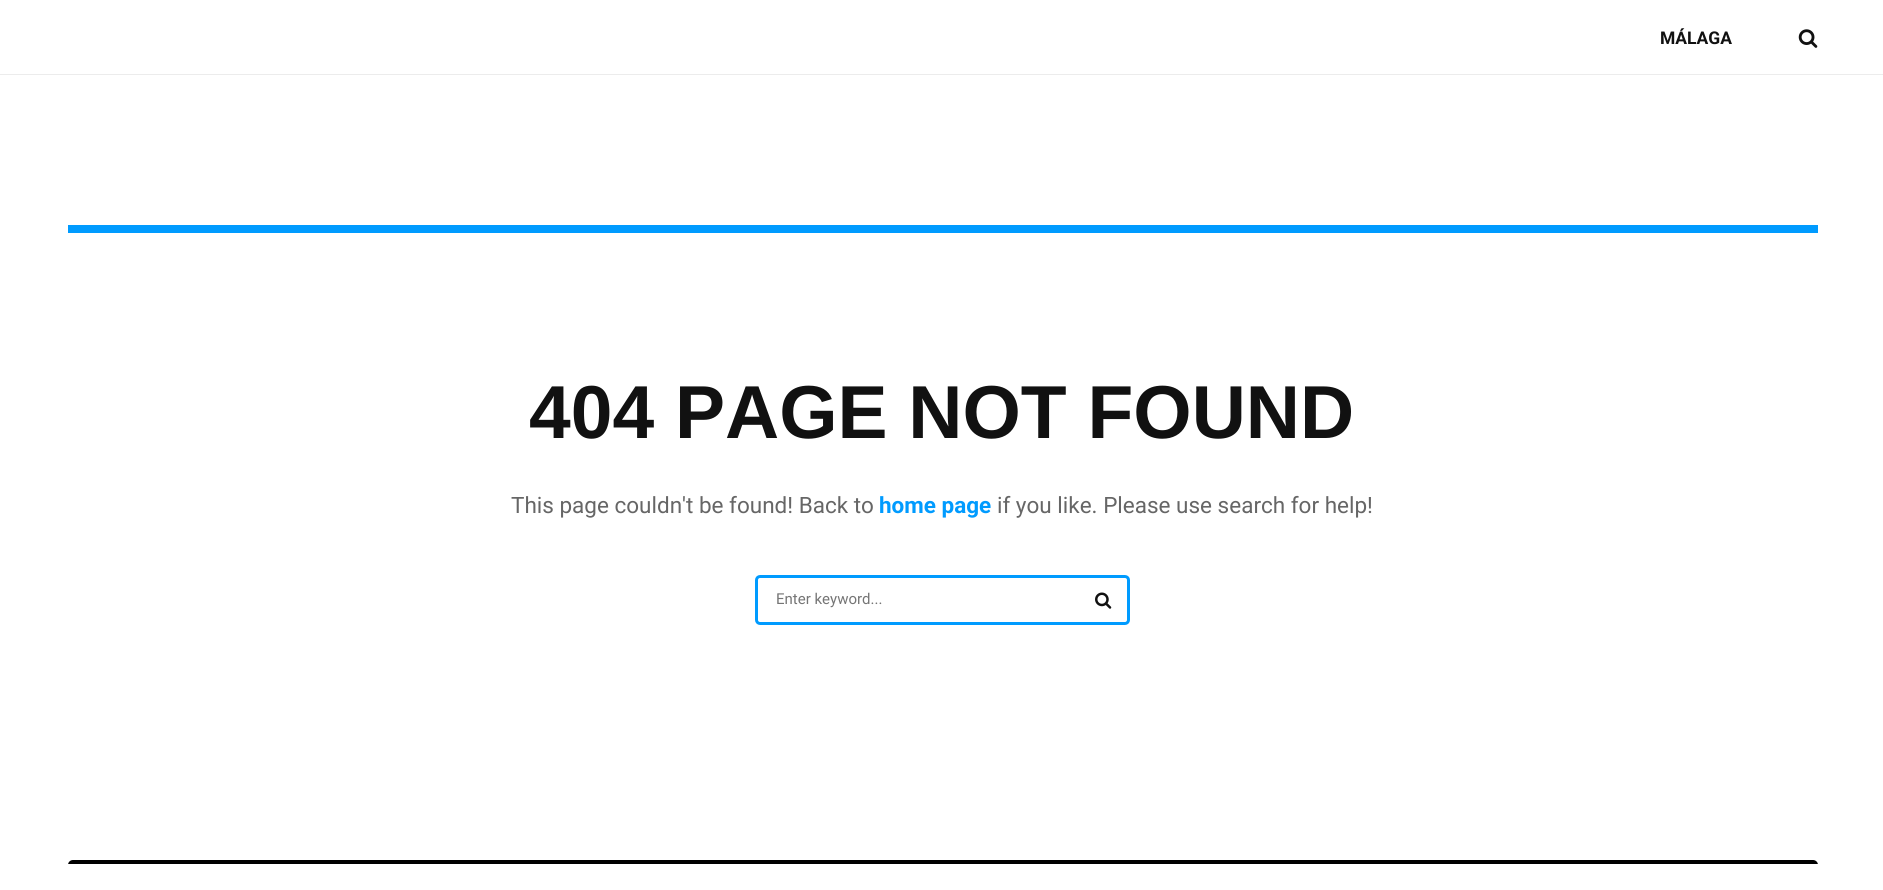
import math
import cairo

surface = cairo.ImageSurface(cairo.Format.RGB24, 1883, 890)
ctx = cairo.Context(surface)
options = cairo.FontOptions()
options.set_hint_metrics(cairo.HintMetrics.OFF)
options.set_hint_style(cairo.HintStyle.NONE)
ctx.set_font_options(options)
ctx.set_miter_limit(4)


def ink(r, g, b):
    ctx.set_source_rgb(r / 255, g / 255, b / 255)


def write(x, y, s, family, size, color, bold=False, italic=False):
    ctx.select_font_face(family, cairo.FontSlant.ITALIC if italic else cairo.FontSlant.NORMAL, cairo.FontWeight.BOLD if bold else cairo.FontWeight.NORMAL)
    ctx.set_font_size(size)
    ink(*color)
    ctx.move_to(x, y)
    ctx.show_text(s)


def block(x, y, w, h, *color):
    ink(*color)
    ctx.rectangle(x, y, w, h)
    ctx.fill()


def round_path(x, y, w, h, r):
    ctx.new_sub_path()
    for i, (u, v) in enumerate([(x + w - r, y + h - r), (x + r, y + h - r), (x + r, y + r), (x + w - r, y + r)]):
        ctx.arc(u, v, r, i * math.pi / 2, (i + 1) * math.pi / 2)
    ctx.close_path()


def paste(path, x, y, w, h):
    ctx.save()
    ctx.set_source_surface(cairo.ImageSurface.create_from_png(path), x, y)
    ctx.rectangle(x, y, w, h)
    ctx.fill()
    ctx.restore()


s1 = dict(family="Roboto", size=17.5, color=(17, 17, 17), bold=True)
s2 = dict(family="Liberation Sans", size=75, color=(17, 17, 17), bold=True)
s3 = dict(family="Roboto", size=22.5, color=(102, 102, 102))
s4 = dict(family="Roboto", size=22.5, color=(0, 155, 255), bold=True)
s5 = dict(family="Roboto", size=15, color=(117, 117, 117))

ink(255, 255, 255)
ctx.paint()
block(0, 74, 1883, 1, 236, 236, 236)
write(1660, 44, "MÁLAGA", **s1)
paste("pic1.png", 1798, 29, 20, 19)
block(68, 225, 1750, 8, 0, 155, 255)
write(529, 438, "404 PAGE NOT FOUND", **s2)
write(511, 513, "This page couldn't be found! Back to", **s3)
write(879, 513, "home page", **s4)
write(997, 513, "if you like. Please use search for help!", **s3)
round_path(756.5, 576.5, 372, 47, 3.5)
ink(0, 155, 255)
ctx.set_line_width(3)
ctx.stroke()
write(776, 604, "Enter keyword...", **s5)
paste("pic2.png", 1095, 592, 17, 17)
ctx.save()
round_path(68, 860, 1750, 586, 5)
ctx.clip()
block(68, 860, 1750, 4, 0, 0, 0)
ctx.restore()
surface.write_to_png("screenshot.png")
